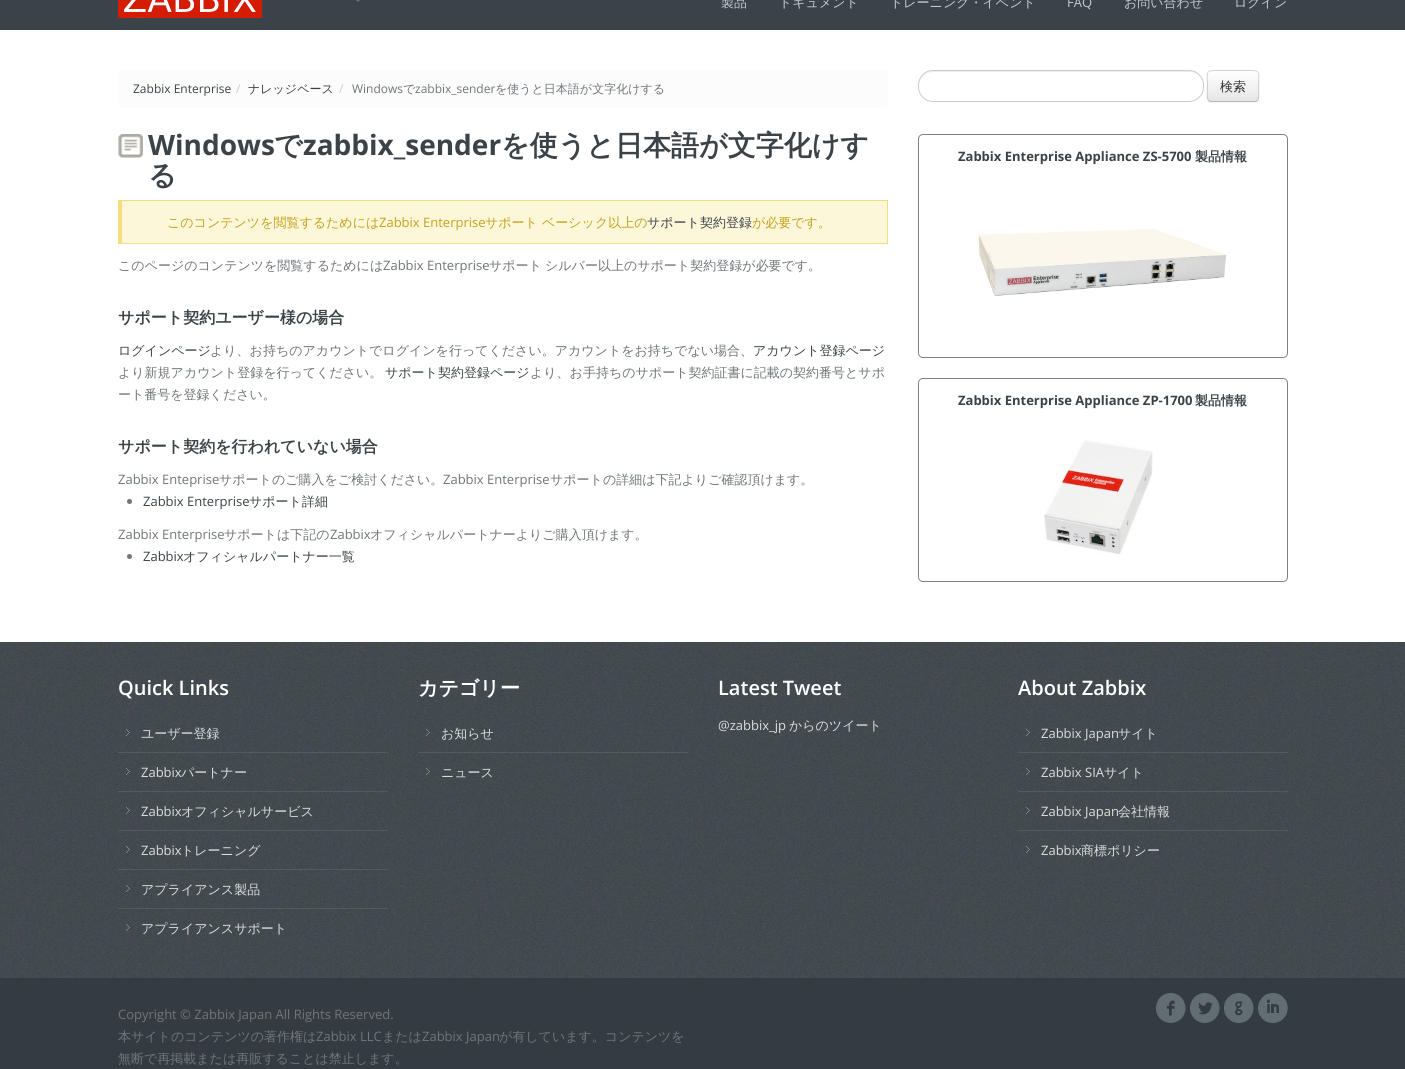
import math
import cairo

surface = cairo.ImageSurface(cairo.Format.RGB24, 1405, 1069)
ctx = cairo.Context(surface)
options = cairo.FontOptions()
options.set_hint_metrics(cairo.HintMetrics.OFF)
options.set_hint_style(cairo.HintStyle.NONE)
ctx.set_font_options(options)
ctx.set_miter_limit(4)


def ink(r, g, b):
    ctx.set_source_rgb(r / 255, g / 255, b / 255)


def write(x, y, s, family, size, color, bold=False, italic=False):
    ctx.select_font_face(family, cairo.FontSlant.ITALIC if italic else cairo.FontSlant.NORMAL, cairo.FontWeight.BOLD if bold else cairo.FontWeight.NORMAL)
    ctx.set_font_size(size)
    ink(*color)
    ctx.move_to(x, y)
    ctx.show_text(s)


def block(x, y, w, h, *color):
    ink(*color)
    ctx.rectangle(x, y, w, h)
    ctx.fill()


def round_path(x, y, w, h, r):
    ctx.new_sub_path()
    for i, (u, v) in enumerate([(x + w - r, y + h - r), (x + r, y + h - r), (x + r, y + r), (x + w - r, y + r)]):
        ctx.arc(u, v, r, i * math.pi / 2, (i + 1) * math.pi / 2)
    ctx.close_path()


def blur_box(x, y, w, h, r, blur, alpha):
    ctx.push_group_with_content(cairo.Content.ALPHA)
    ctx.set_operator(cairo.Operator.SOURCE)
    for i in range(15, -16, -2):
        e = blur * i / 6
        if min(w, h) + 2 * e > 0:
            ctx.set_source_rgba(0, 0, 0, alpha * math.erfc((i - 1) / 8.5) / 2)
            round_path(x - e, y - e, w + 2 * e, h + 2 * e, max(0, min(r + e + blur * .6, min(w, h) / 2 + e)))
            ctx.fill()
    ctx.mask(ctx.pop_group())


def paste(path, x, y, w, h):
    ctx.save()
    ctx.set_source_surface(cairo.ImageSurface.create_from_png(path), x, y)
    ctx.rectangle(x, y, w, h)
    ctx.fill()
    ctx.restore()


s1 = dict(family="Open Sans", size=12, color=(129, 138, 144))
s2 = dict(family="WenQuanYi Zen Hei Medium", size=13, color=(193, 202, 209))
s3 = dict(family="Open Sans", size=13, color=(193, 202, 209))
s4 = dict(family="Open Sans", size=12, color=(59, 67, 72))
s5 = dict(family="Open Sans", size=12, color=(204, 204, 204))
s6 = dict(family="WenQuanYi Zen Hei Medium", size=12, color=(59, 67, 72))
s7 = dict(family="Open Sans", size=12, color=(111, 117, 121))
s8 = dict(family="WenQuanYi Zen Hei Medium", size=12, color=(111, 117, 121))
s9 = dict(family="Open Sans", size=28, color=(59, 67, 72), bold=True)
s10 = dict(family="WenQuanYi Zen Hei", size=28, color=(59, 67, 72), bold=True)
s11 = dict(family="WenQuanYi Zen Hei Medium", size=13, color=(196, 162, 27))
s12 = dict(family="Open Sans", size=13, color=(196, 162, 27))
s13 = dict(family="WenQuanYi Zen Hei Medium", size=13, color=(59, 67, 72))
s14 = dict(family="WenQuanYi Zen Hei Medium", size=13, color=(111, 117, 121))
s15 = dict(family="Open Sans", size=13, color=(111, 117, 121))
s16 = dict(family="WenQuanYi Zen Hei", size=16, color=(59, 67, 72), bold=True)
s17 = dict(family="Open Sans", size=13, color=(59, 67, 72))
s18 = dict(family="WenQuanYi Zen Hei Medium", size=13, color=(51, 51, 51))
s19 = dict(family="Open Sans", size=13, color=(59, 67, 72), bold=True)
s20 = dict(family="WenQuanYi Zen Hei", size=13, color=(59, 67, 72), bold=True)
s21 = dict(family="Open Sans SemiBold", size=20, color=(255, 255, 255))
s22 = dict(family="WenQuanYi Zen Hei Medium", size=13, color=(221, 221, 221))
s23 = dict(family="Open Sans", size=13, color=(221, 221, 221))
s24 = dict(family="WenQuanYi Zen Hei", size=20, color=(255, 255, 255), bold=True)

ink(255, 255, 255)
ctx.paint()
block(0, 0, 1405, 30, 59, 67, 72)
paste("pic1.png", 118, 0, 144, 18)
write(356, 4, "-", **s1)
write(721, 7, "製品", **s2)
write(779, 7, "ドキュメント", **s2)
write(890, 7, "トレーニング・イベント", **s2)
write(1067, 7, "FAQ", **s3)
write(1124, 7, "お問い合わせ", **s2)
write(1234, 7, "ログイン", **s2)
ink(252, 252, 252)
round_path(118, 70, 770, 38, 4)
ctx.fill()
write(133, 93, "Zabbix Enterprise", **s4)
write(236, 93, "/", **s5)
write(248, 93, "ナレッジベース", **s6)
write(339, 93, "/", **s5)
write(352, 93, "Windows", **s7)
write(403, 93, "で", **s8)
write(415, 93, "zabbix_sender", **s7)
write(495, 93, "を使うと日本語が文字化けする", **s8)
paste("pic2.png", 118, 134, 25, 24)
write(148, 155, "Windows", **s9)
write(274, 155, "で", **s10)
write(303, 155, "zabbix_sender", **s9)
write(501, 155, "を使うと日本語が文字化けす", **s10)
write(148, 185, "る", **s10)
block(122, 201, 765, 42, 252, 247, 217)
block(118, 200, 770, 1, 245, 220, 125)
block(887, 200, 1, 44, 245, 220, 125)
block(118, 243, 770, 1, 245, 220, 125)
block(118, 200, 4, 44, 245, 220, 125)
write(167, 227, "このコンテンツを閲覧するためには", **s11)
write(379, 227, "Zabbix Enterprise", **s12)
write(485, 227, "サポート", **s11)
write(542, 227, "ベーシック以上の", **s11)
write(647, 227, "サポート契約登録", **s13)
write(752, 227, "が必要です。", **s11)
write(118, 270, "このページのコンテンツを閲覧するためには", **s14)
write(383, 270, "Zabbix Enterprise", **s15)
write(489, 270, "サポート", **s14)
write(545, 270, "シルバー以上のサポート契約登録が必要です。", **s14)
write(118, 323, "サポート契約ユーザー様の場合", **s16)
write(118, 355, "ログインページ", **s13)
write(210, 355, "より、お持ちのアカウントでログインを行ってください。アカウントをお持ちでない場合、", **s14)
write(753, 355, "アカウント登録ページ", **s13)
write(118, 377, "より新規アカウント登録を行ってください。", **s14)
write(385, 377, "サポート契約登録ページ", **s13)
write(530, 377, "より、お手持ちのサポート契約証書に記載の契約番号とサポ", **s14)
write(118, 399, "ート番号を登録ください。", **s14)
write(118, 452, "サポート契約を行われていない場合", **s16)
write(118, 484, "Zabbix Enteprise", **s15)
write(219, 484, "サポートのご購入をご検討ください。", **s14)
write(443, 484, "Zabbix Enterprise", **s15)
write(550, 484, "サポートの詳細は下記よりご確認頂けます。", **s14)
ctx.new_path()
ctx.arc(129.5, 501.5, 2.5, 0, 2 * math.pi)
ctx.fill()
write(143, 506, "Zabbix Enterprise", **s17)
write(249, 506, "サポート詳細", **s13)
write(118, 539, "Zabbix Enterprise", **s15)
write(224, 539, "サポートは下記の", **s14)
write(330, 539, "Zabbix", **s15)
write(370, 539, "オフィシャルパートナーよりご購入頂けます。", **s14)
ctx.new_path()
ctx.arc(129.5, 556.5, 2.5, 0, 2 * math.pi)
ctx.fill()
write(143, 561, "Zabbix", **s17)
write(183, 561, "オフィシャルパートナー一覧", **s13)
ink(236, 236, 236)
ctx.new_path()
ctx.move_to(933, 72)
ctx.line_to(1189, 72)
ctx.curve_to(1197, 72, 1202, 77, 1203, 84)
ctx.curve_to(1202, 77, 1196, 71, 1189, 71)
ctx.line_to(933, 71)
ctx.curve_to(926, 71, 920, 77, 919, 84)
ctx.curve_to(921, 77, 926, 72, 933, 72)
ctx.close_path()
ctx.fill()
round_path(918.5, 70.5, 285, 31, 14.5)
ink(204, 204, 204)
ctx.set_line_width(1)
ctx.stroke()
ink(0, 0, 0)
blur_box(1207, 71, 52, 32, 4, 1, 0.05)
ink(245, 245, 245)
round_path(1207, 70, 52, 32, 4)
ctx.fill()
ctx.save()
round_path(1207, 70, 52, 32, 4)
ctx.clip()
gradient = cairo.LinearGradient(1233, 71, 1233, 101)
gradient.add_color_stop_rgba(0, 1, 1, 1, 1)
gradient.add_color_stop_rgba(1, 0.902, 0.902, 0.902, 1)
ctx.set_source(gradient)
ctx.rectangle(1207, 71, 52, 30)
ctx.fill()
ctx.restore()
ink(255, 255, 255)
ctx.set_fill_rule(cairo.FillRule.EVEN_ODD)
ctx.new_path()
ctx.move_to(1211, 72)
ctx.line_to(1240, 72)
ctx.curve_to(1251, 72, 1255, 71, 1257, 73)
ctx.curve_to(1258, 73, 1258, 75, 1258, 77)
ctx.curve_to(1258, 69, 1255, 71, 1248, 71)
ctx.line_to(1218, 71)
ctx.curve_to(1215, 71, 1208, 69, 1208, 74)
ctx.curve_to(1208, 73, 1209, 72, 1211, 72)
ctx.close_path()
ctx.move_to(1208, 99)
ctx.line_to(1208, 91)
ctx.close_path()
ctx.fill()
ctx.new_path()
ctx.move_to(1257.5, 100.5)
ctx.curve_to(1257, 101, 1256, 101.5, 1255, 101.5)
ctx.line_to(1211, 101.5)
ctx.curve_to(1210, 101.5, 1209, 101, 1208.5, 100.5)
ink(184, 184, 184)
ctx.stroke()
ctx.new_path()
ctx.move_to(1208.5, 100.5)
ctx.curve_to(1206.5, 98, 1207.5, 89, 1207.5, 86)
ctx.curve_to(1207.5, 71, 1204.5, 70.5, 1218.5, 70.5)
ctx.line_to(1247.5, 70.5)
ctx.curve_to(1261.5, 70.5, 1258.5, 71, 1258.5, 86)
ctx.curve_to(1258.5, 89, 1259.5, 98, 1257.5, 100.5)
ctx.set_source_rgba(0, 0, 0, 0.15)
ctx.stroke()
write(1220, 91, "検索", **s18)
round_path(918.5, 134.5, 369, 223, 4.5)
ink(128, 128, 128)
ctx.stroke()
write(958, 161, "Zabbix Enterprise Appliance ZS-5700", **s19)
write(1195, 161, "製品情報", **s20)
paste("pic3.png", 978, 229, 249, 67)
round_path(918.5, 378.5, 369, 203, 4.5)
ink(128, 128, 128)
ctx.stroke()
write(958, 405, "Zabbix Enterprise Appliance ZP-1700", **s19)
write(1195, 405, "製品情報", **s20)
paste("pic4.png", 1044, 440, 109, 115)
paste("pic5.png", 0, 642, 1405, 336)
write(118, 695, "Quick Links", **s21)
paste("pic6.png", 126, 729, 4, 7)
block(118, 752, 270, 1, 83, 91, 97)
write(141, 738, "ユーザー登録", **s22)
paste("pic7.png", 126, 768, 4, 7)
block(118, 791, 270, 1, 83, 91, 97)
write(141, 777, "Zabbix", **s23)
write(181, 777, "パートナー", **s22)
paste("pic8.png", 126, 807, 4, 7)
block(118, 830, 270, 1, 83, 91, 97)
write(141, 816, "Zabbix", **s23)
write(181, 816, "オフィシャルサービス", **s22)
paste("pic9.png", 126, 846, 4, 7)
block(118, 869, 270, 1, 83, 91, 97)
write(141, 855, "Zabbix", **s23)
write(181, 855, "トレーニング", **s22)
paste("pic10.png", 126, 885, 4, 7)
block(118, 908, 270, 1, 83, 91, 97)
write(141, 894, "アプライアンス製品", **s22)
paste("pic11.png", 126, 924, 4, 7)
write(141, 933, "アプライアンスサポート", **s22)
write(418, 695, "カテゴリー", **s24)
paste("pic12.png", 426, 729, 4, 7)
block(418, 752, 270, 1, 83, 91, 97)
write(441, 738, "お知らせ", **s22)
paste("pic13.png", 426, 768, 4, 7)
write(441, 777, "ニュース", **s22)
write(718, 695, "Latest Tweet", **s21)
write(718, 730, "@zabbix_jp", **s23)
write(789, 730, "からのツイート", **s22)
write(1018, 695, "About Zabbix", **s21)
paste("pic14.png", 1026, 729, 4, 7)
block(1018, 752, 270, 1, 83, 91, 97)
write(1041, 738, "Zabbix Japan", **s23)
write(1118, 738, "サイト", **s22)
paste("pic15.png", 1026, 768, 4, 7)
block(1018, 791, 270, 1, 83, 91, 97)
write(1041, 777, "Zabbix SIA", **s23)
write(1104, 777, "サイト", **s22)
paste("pic16.png", 1026, 807, 4, 7)
block(1018, 830, 270, 1, 83, 91, 97)
write(1041, 816, "Zabbix Japan", **s23)
write(1118, 816, "会社情報", **s22)
paste("pic17.png", 1026, 846, 4, 7)
write(1041, 855, "Zabbix", **s23)
write(1081, 855, "商標ポリシー", **s22)
block(0, 978, 1405, 91, 53, 60, 65)
write(118, 1019, "Copyright © Zabbix Japan All Rights Reserved.", **s15)
write(118, 1041, "本サイトのコンテンツの著作権は", **s14)
write(316, 1041, "Zabbix LLC", **s15)
write(382, 1041, "または", **s14)
write(422, 1041, "Zabbix Japan", **s15)
write(499, 1041, "が有しています。コンテンツを", **s14)
write(118, 1063, "無断で再掲載または再販することは禁止します。", **s14)
paste("pic18.png", 1156, 993, 30, 30)
paste("pic19.png", 1190, 993, 30, 30)
paste("pic20.png", 1224, 993, 30, 30)
paste("pic21.png", 1258, 993, 30, 30)
surface.write_to_png("screenshot.png")
